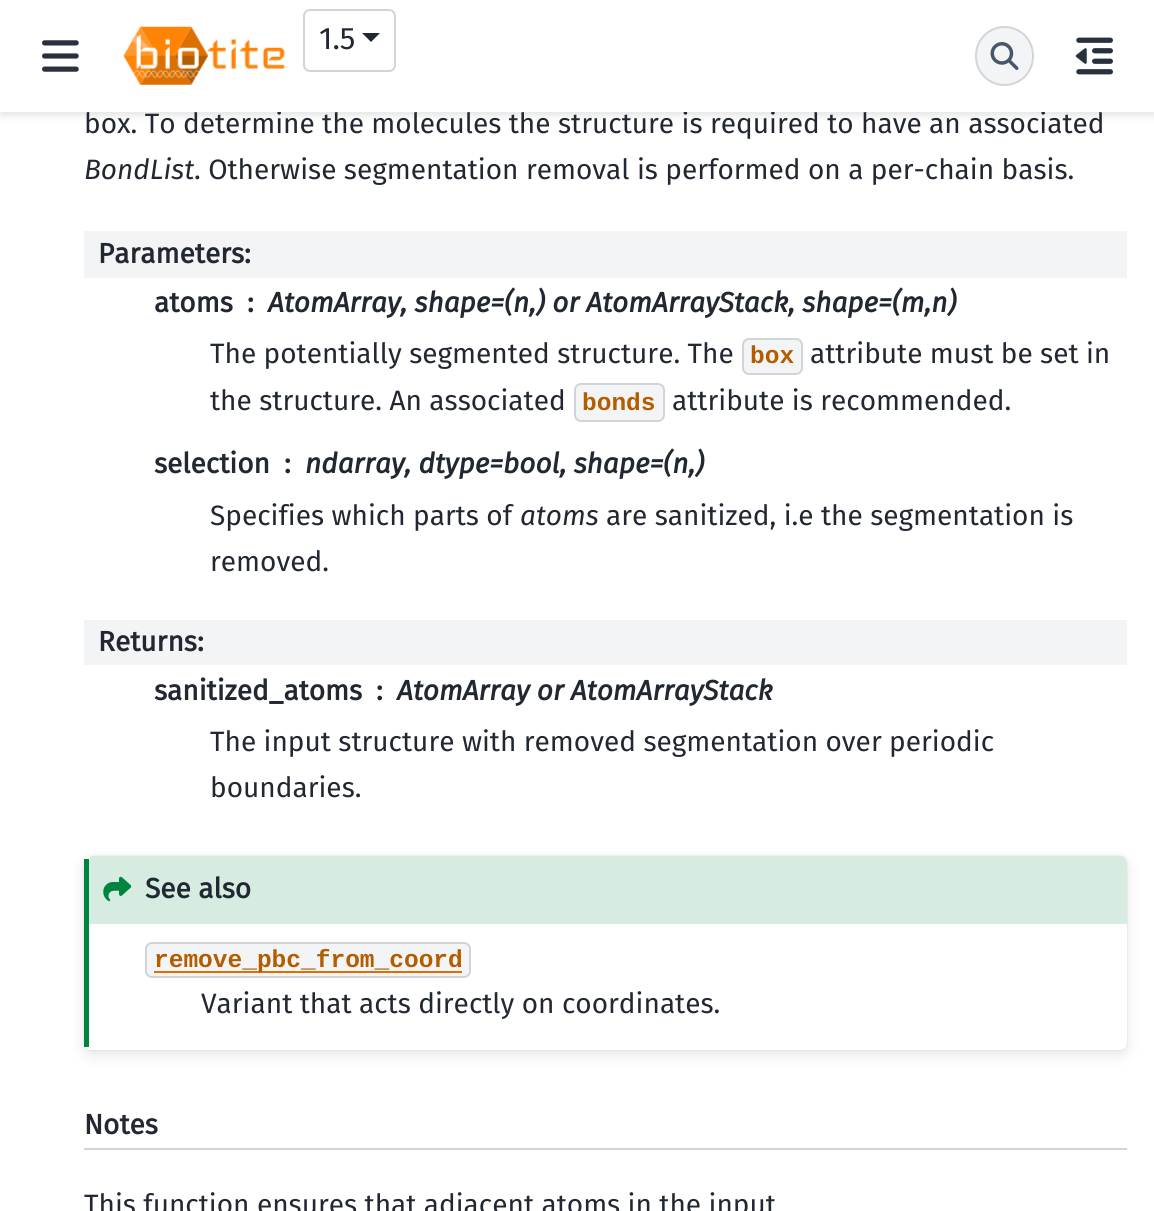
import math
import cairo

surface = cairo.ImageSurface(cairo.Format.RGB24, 1154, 1211)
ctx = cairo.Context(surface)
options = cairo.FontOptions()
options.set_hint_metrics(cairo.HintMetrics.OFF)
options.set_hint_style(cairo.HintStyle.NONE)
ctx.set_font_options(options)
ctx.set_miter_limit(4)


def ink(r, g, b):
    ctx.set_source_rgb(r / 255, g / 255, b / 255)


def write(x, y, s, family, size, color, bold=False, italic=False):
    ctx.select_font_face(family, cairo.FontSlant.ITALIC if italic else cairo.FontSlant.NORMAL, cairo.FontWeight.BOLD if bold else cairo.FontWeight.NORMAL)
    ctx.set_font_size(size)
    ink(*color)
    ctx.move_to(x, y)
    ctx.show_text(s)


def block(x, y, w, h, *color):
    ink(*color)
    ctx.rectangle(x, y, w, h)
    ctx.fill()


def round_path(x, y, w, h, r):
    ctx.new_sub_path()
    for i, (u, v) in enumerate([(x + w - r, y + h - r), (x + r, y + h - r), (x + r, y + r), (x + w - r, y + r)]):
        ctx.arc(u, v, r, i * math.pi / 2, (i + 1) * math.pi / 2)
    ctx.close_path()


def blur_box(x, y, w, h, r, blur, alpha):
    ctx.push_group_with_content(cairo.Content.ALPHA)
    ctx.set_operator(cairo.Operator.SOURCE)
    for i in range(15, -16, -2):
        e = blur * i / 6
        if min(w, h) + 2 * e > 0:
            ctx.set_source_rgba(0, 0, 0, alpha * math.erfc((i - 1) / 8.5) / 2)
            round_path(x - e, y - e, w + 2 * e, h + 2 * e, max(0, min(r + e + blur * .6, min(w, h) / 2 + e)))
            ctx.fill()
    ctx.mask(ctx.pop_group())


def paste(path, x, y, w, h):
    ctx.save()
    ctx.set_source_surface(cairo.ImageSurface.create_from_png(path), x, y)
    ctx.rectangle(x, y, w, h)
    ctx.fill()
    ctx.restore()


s1 = dict(family="Fira Sans", size=28, color=(34, 40, 50))
s2 = dict(family="Fira Sans", size=31, color=(34, 40, 50))
s3 = dict(family="Fira Sans", size=28, color=(34, 40, 50), italic=True)
s4 = dict(family="Fira Sans", size=28, color=(34, 40, 50), bold=True)
s5 = dict(family="Fira Sans", size=28, color=(34, 40, 50), bold=True, italic=True)
s6 = dict(family="Liberation Mono", size=24.5, color=(180, 92, 0), bold=True)

ink(255, 255, 255)
ctx.paint()
ink(0, 0, 0)
blur_box(0, 4, 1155, 112, 0, 3.5, 0.1)
write(84, 133, "box. To determine the molecules the structure is required to have an associated", **s1)
block(0, 0, 1154, 112, 255, 255, 255)
paste("pic1.png", 42, 40, 37, 32)
paste("pic2.png", 123, 26, 162, 59)
round_path(304, 10, 91, 61, 6)
ink(209, 213, 218)
ctx.stroke()
write(319, 49, "1.5", **s2)
ctx.new_path()
ctx.move_to(362, 33)
ctx.line_to(380, 33)
ctx.line_to(371, 42)
ctx.close_path()
ctx.fill()
ink(243, 244, 245)
round_path(976, 27, 57, 58, 28.5)
ctx.fill_preserve()
ink(209, 213, 218)
ctx.stroke()
paste("pic3.png", 990, 42, 29, 28)
paste("pic4.png", 1075, 37, 38, 38)
write(84, 179, "BondList", **s3)
write(194, 179, ". Otherwise segmentation removal is performed on a per-chain basis.", **s1)
block(84, 231, 1043, 47, 243, 244, 245)
write(98, 263, "Parameters:", **s4)
write(154, 312, "atoms", **s4)
write(247, 312, ":", **s4)
write(268, 312, "AtomArray, shape=(n,) or AtomArrayStack, shape=(m,n)", **s5)
write(210, 363, "The potentially segmented structure. The", **s1)
ink(243, 244, 245)
round_path(743, 339, 59, 35, 6)
ctx.fill_preserve()
ink(209, 213, 218)
ctx.stroke()
write(750, 363, "box", **s6)
write(810, 363, "attribute must be set in", **s1)
write(210, 410, "the structure. An associated", **s1)
ink(243, 244, 245)
round_path(575, 384, 89, 37, 6)
ctx.fill_preserve()
ink(209, 213, 218)
ctx.stroke()
write(582, 410, "bonds", **s6)
write(672, 410, "attribute is recommended.", **s1)
write(154, 473, "selection", **s4)
write(284, 473, ":", **s4)
write(305, 473, "ndarray, dtype=bool, shape=(n,)", **s5)
write(210, 525, "Specifies which parts of", **s1)
write(520, 525, "atoms", **s3)
write(606, 525, "are sanitized, i.e the segmentation is", **s1)
write(210, 571, "removed.", **s1)
block(84, 620, 1043, 45, 243, 244, 245)
write(98, 651, "Returns:", **s4)
write(154, 700, "sanitized_atoms", **s4)
write(376, 700, ":", **s4)
write(397, 700, "AtomArray or AtomArrayStack", **s5)
write(210, 751, "The input structure with removed segmentation over periodic", **s1)
write(210, 797, "boundaries.", **s1)
ink(0, 0, 0)
blur_box(84, 856, 1043, 194, 7, 1, 0.1)
blur_box(84, 861, 1043, 194, 7, 7, 0.1)
ink(255, 255, 255)
round_path(84, 856, 1043, 194, 7)
ctx.fill()
block(84, 859, 5, 188, 0, 132, 63)
ink(214, 236, 225)
ctx.new_path()
ctx.move_to(89, 924)
ctx.line_to(89, 863)
ctx.curve_to(89, 860, 90, 857, 91, 856)
ctx.line_to(1122, 856)
ctx.curve_to(1125, 857, 1127, 860, 1127, 863)
ctx.line_to(1127, 924)
ctx.close_path()
ctx.fill()
paste("pic5.png", 103, 876, 29, 26)
write(145, 898, "See also", **s4)
ink(243, 244, 245)
round_path(146, 943, 324, 34, 6)
ctx.fill_preserve()
ink(209, 213, 218)
ctx.stroke()
block(154, 971, 308, 2, 220, 112, 0)
write(154, 967, "remove_pbc_from_coord", **s6)
write(201, 1013, "Variant that acts directly on coordinates.", **s1)
block(84, 1148, 1043, 2, 209, 213, 218)
write(84, 1134, "Notes", **s4)
write(84, 1214, "This function ensures that adjacent atoms in the input", **s1)
surface.write_to_png("screenshot.png")
